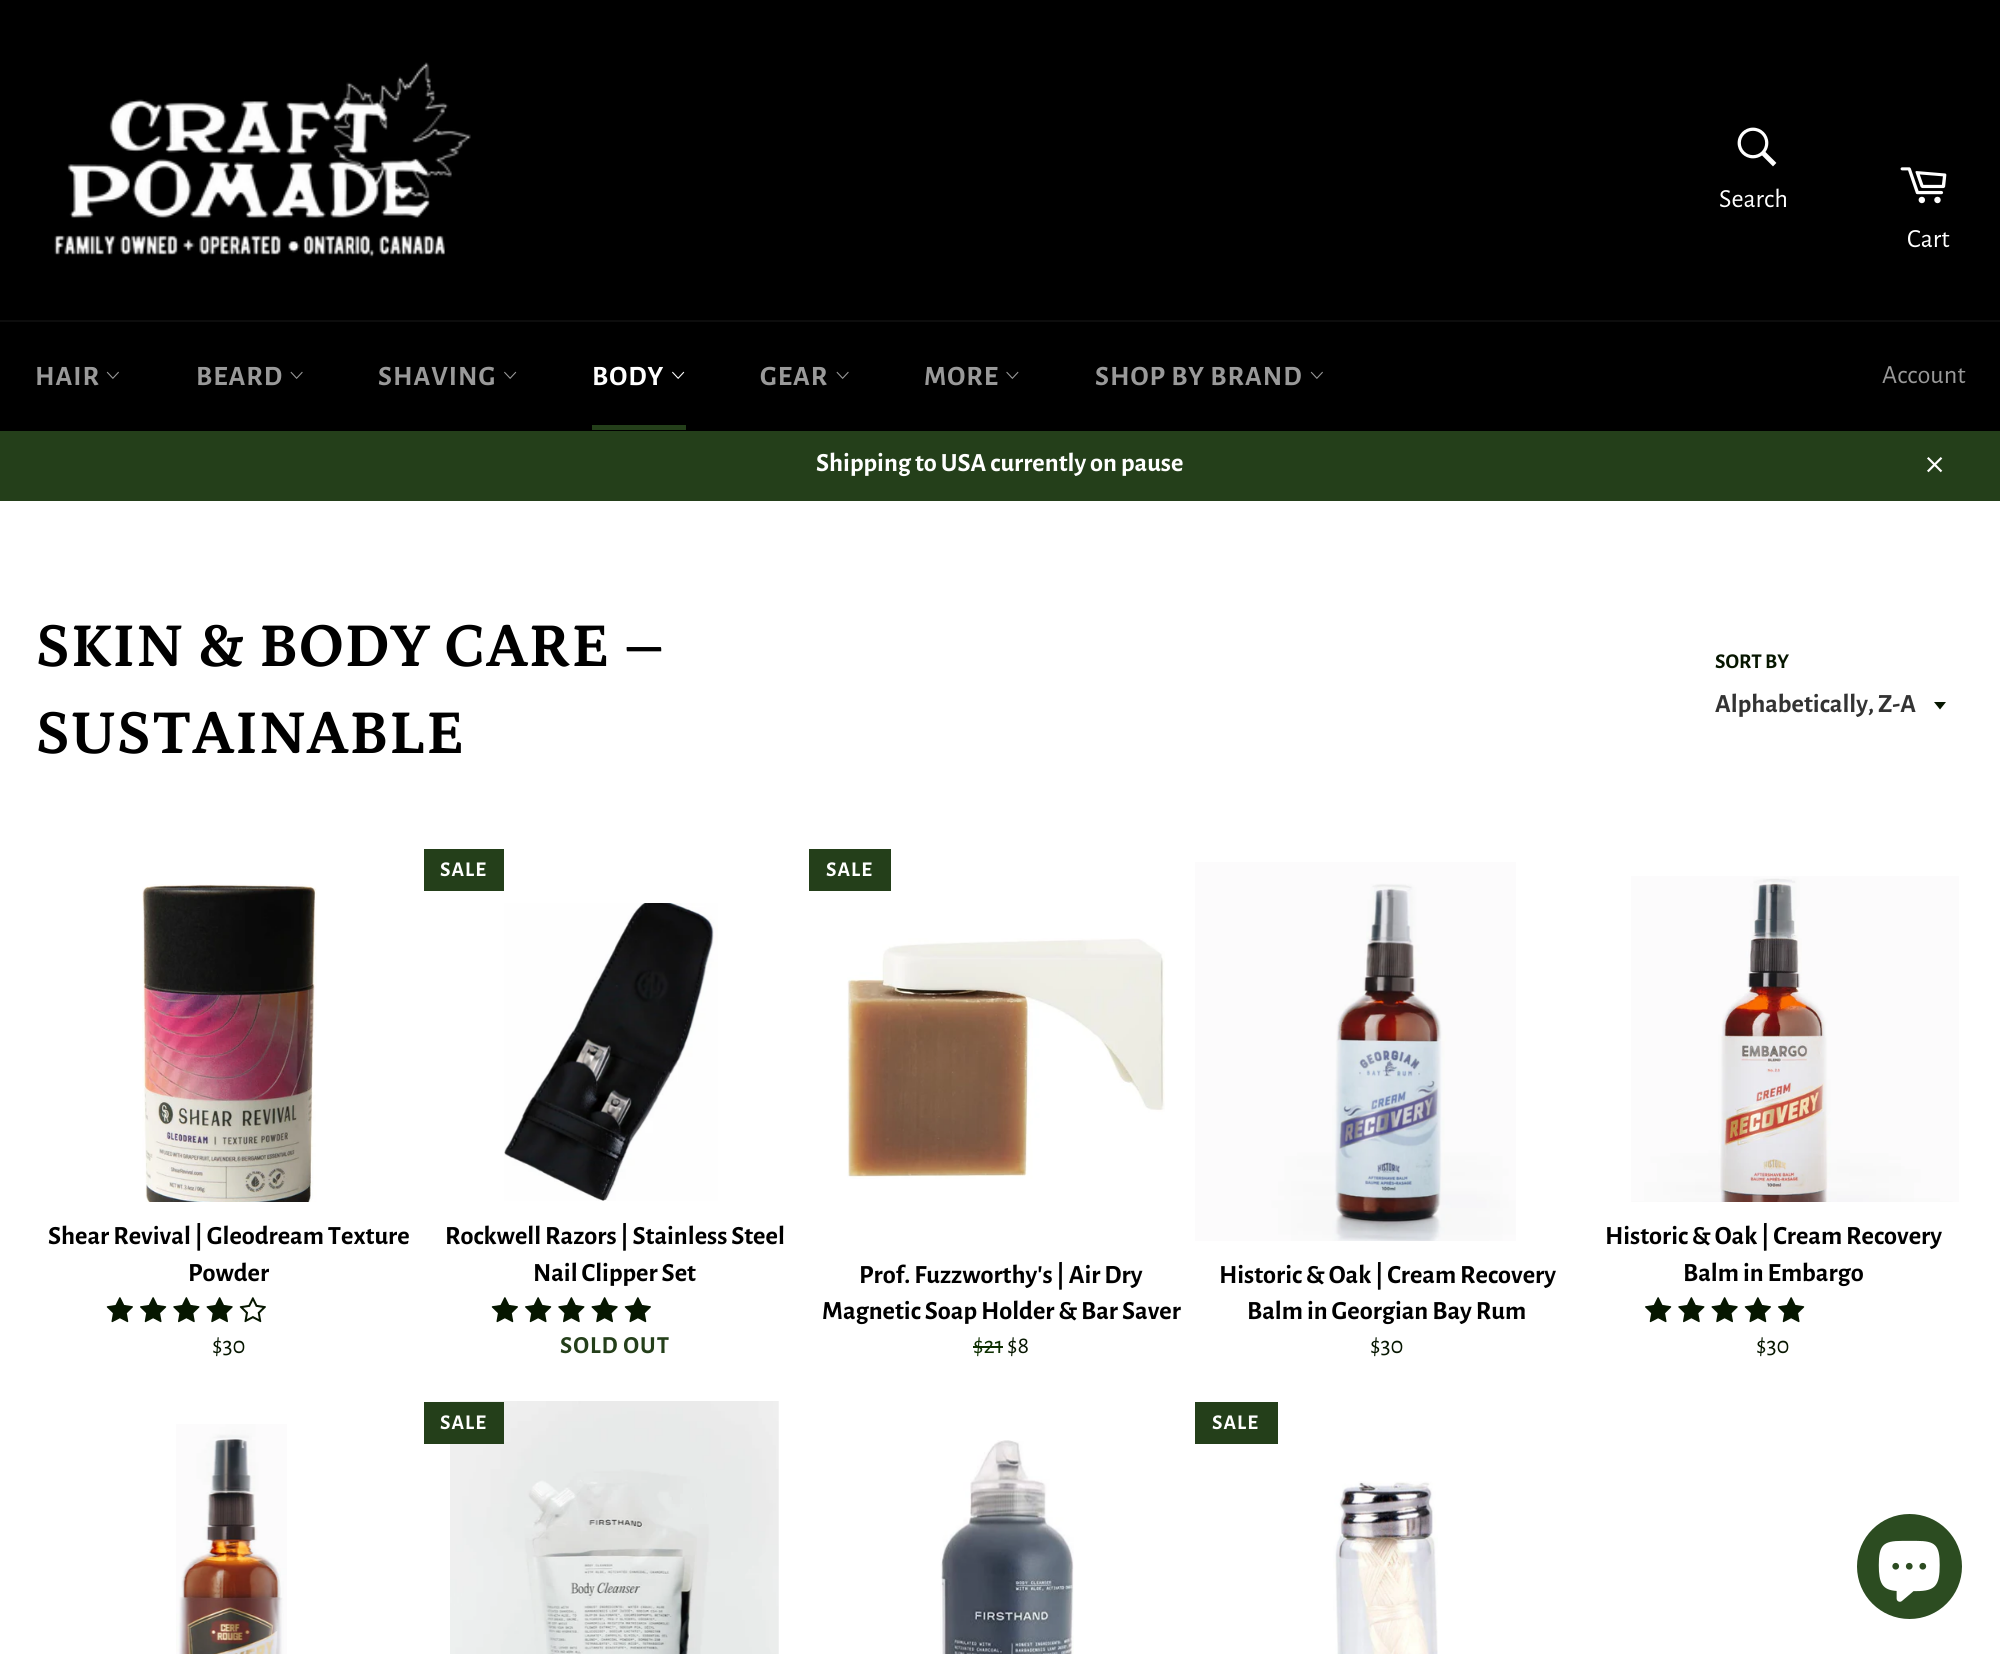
import math
import cairo

surface = cairo.ImageSurface(cairo.Format.RGB24, 2000, 1654)
ctx = cairo.Context(surface)
options = cairo.FontOptions()
options.set_hint_metrics(cairo.HintMetrics.OFF)
options.set_hint_style(cairo.HintStyle.NONE)
ctx.set_font_options(options)
ctx.set_miter_limit(4)


def ink(r, g, b):
    ctx.set_source_rgb(r / 255, g / 255, b / 255)


def write(x, y, s, family, size, color, bold=False, italic=False):
    ctx.select_font_face(family, cairo.FontSlant.ITALIC if italic else cairo.FontSlant.NORMAL, cairo.FontWeight.BOLD if bold else cairo.FontWeight.NORMAL)
    ctx.set_font_size(size)
    ink(*color)
    ctx.move_to(x, y)
    ctx.show_text(s)


def write_spaced(x, y, s, letter, word):
    ctx.move_to(x, y)
    for ch in s:
        ctx.show_text(ch)
        ctx.rel_move_to(letter + word * (ch == ' '), 0)


def block(x, y, w, h, *color):
    ink(*color)
    ctx.rectangle(x, y, w, h)
    ctx.fill()


def paste(path, x, y, w, h):
    ctx.save()
    ctx.set_source_surface(cairo.ImageSurface.create_from_png(path), x, y)
    ctx.rectangle(x, y, w, h)
    ctx.fill()
    ctx.restore()


s1 = dict(family="Alegreya Sans", size=26.25, color=(255, 255, 255))
s2 = dict(family="Alegreya Sans", size=26.25, color=(153, 153, 153))
s3 = dict(family="Alegreya Sans", size=26.25, color=(255, 255, 255), bold=True)
s4 = dict(family="Petrona", size=63, color=(0, 0, 0), bold=True)
s5 = dict(family="Alegreya Sans", size=21, color=(6, 22, 0), bold=True)
s6 = dict(family="Alegreya Sans", size=26.25, color=(51, 51, 51), bold=True)
s7 = dict(family="Alegreya Sans", size=26.25, color=(0, 0, 0), bold=True)
s8 = dict(family="Alegreya Sans", size=24.5, color=(6, 22, 0))
s9 = dict(family="Alegreya Sans", size=24.5, color=(13, 47, 0))

ink(255, 255, 255)
ctx.paint()
block(0, 0, 2000, 320, 0, 0, 0)
paste("pic1.png", 54, 62, 417, 196)
paste("pic2.png", 1737, 127, 40, 40)
write(1719, 207, "Search", **s1)
paste("pic3.png", 1900, 167, 47, 37)
write(1907, 247, "Cart", **s1)
block(0, 322, 2000, 109, 0, 0, 0)
block(0, 320, 2000, 2, 13, 13, 13)
ctx.select_font_face("Alegreya Sans", cairo.FontSlant.NORMAL, cairo.FontWeight.BOLD)
ctx.set_font_size(28)
ink(153, 153, 153)
write_spaced(35, 385, "HAIR", 1, 0)
paste("pic4.png", 106, 371, 13, 8)
write_spaced(196, 385, "BEARD", 1, 0)
paste("pic5.png", 290, 371, 13, 8)
write_spaced(378, 385, "SHAVING", 1, 0)
paste("pic6.png", 504, 371, 13, 8)
ink(255, 255, 255)
write_spaced(592, 385, "BODY", 1, 0)
paste("pic7.png", 672, 371, 13, 8)
block(592, 425, 94, 5, 36, 63, 26)
ink(153, 153, 153)
write_spaced(760, 385, "GEAR", 1, 0)
paste("pic5.png", 836, 371, 13, 8)
write_spaced(924, 385, "MORE", 1, 0)
paste("pic8.png", 1006, 371, 13, 8)
write_spaced(1095, 385, "SHOP BY BRAND", 1, 0)
paste("pic4.png", 1310, 371, 13, 8)
write(1882, 383, "Account", **s2)
block(0, 431, 2000, 70, 36, 63, 26)
write(816, 471, "Shipping to USA currently on pause", **s3)
paste("pic9.png", 1927, 457, 16, 16)
write(35, 666, "SKIN & BODY CARE –", **s4)
write(35, 753, "SUSTAINABLE", **s4)
write(1715, 668, "SORT BY", **s5)
ctx.new_path()
ctx.move_to(1934, 702)
ctx.line_to(1940, 709.5)
ctx.line_to(1946, 702)
ctx.close_path()
ctx.fill()
write(1715, 712, "Alphabetically, Z-A", **s6)
paste("pic10.png", 142, 884, 175, 318)
write(48, 1244, "Shear Revival | Gleodream Texture", **s7)
write(188, 1281, "Powder", **s7)
paste("pic11.png", 106, 1297, 27, 26)
paste("pic12.png", 140, 1297, 27, 26)
paste("pic13.png", 173, 1297, 27, 26)
paste("pic14.png", 206, 1297, 27, 26)
paste("pic15.png", 239, 1297, 27, 26)
write(212, 1353, "$30", **s8)
block(424, 849, 80, 42, 36, 63, 26)
ctx.select_font_face("Alegreya Sans", cairo.FontSlant.NORMAL, cairo.FontWeight.BOLD)
ctx.set_font_size(21)
ink(255, 255, 255)
write_spaced(440, 876, "SALE", 1, 0)
paste("pic16.png", 504, 903, 214, 298)
write(445, 1244, "Rockwell Razors | Stainless Steel", **s7)
write(533, 1281, "Nail Clipper Set", **s7)
paste("pic11.png", 491, 1297, 27, 26)
paste("pic12.png", 525, 1297, 27, 26)
paste("pic13.png", 558, 1297, 27, 26)
paste("pic14.png", 591, 1297, 27, 26)
paste("pic11.png", 624, 1297, 27, 26)
ctx.set_font_size(24.5)
ink(36, 63, 26)
write_spaced(560, 1353, "SOLD OUT", 1, 0)
block(809, 849, 82, 42, 36, 63, 26)
ctx.set_font_size(21)
ink(255, 255, 255)
write_spaced(826, 876, "SALE", 1, 0)
paste("pic17.png", 847, 938, 318, 241)
write(859, 1283, "Prof. Fuzzworthy's | Air Dry", **s7)
write(822, 1319, "Magnetic Soap Holder & Bar Saver", **s7)
write(973, 1353, "$21", **s9)
block(973, 1346, 30, 2, 13, 47, 0)
write(1007, 1353, "$8", **s8)
paste("pic18.png", 1195, 862, 321, 379)
write(1219, 1283, "Historic & Oak | Cream Recovery", **s7)
write(1247, 1319, "Balm in Georgian Bay Rum", **s7)
write(1370, 1353, "$30", **s8)
paste("pic19.png", 1631, 876, 328, 326)
write(1605, 1244, "Historic & Oak | Cream Recovery", **s7)
write(1683, 1281, "Balm in Embargo", **s7)
paste("pic12.png", 1645, 1297, 27, 26)
paste("pic13.png", 1678, 1297, 27, 26)
paste("pic14.png", 1711, 1297, 27, 26)
paste("pic11.png", 1744, 1297, 27, 26)
paste("pic12.png", 1778, 1297, 27, 26)
write(1756, 1353, "$30", **s8)
paste("pic20.png", 450, 1401, 329, 253)
block(424, 1402, 80, 42, 36, 63, 26)
ctx.select_font_face("Alegreya Sans", cairo.FontSlant.NORMAL, cairo.FontWeight.BOLD)
ctx.set_font_size(21)
ink(255, 255, 255)
write_spaced(440, 1429, "SALE", 1, 0)
block(1195, 1402, 83, 42, 36, 63, 26)
ink(255, 255, 255)
write_spaced(1212, 1429, "SALE", 1, 0)
paste("pic21.png", 1333, 1481, 105, 173)
paste("pic22.png", 176, 1424, 111, 230)
paste("pic23.png", 940, 1440, 134, 214)
ink(44, 76, 33)
ctx.arc(1909.5, 1566.5, 52.5, 0, 2 * math.pi)
ctx.fill()
paste("pic24.png", 1878, 1540, 62, 62)
surface.write_to_png("screenshot.png")
